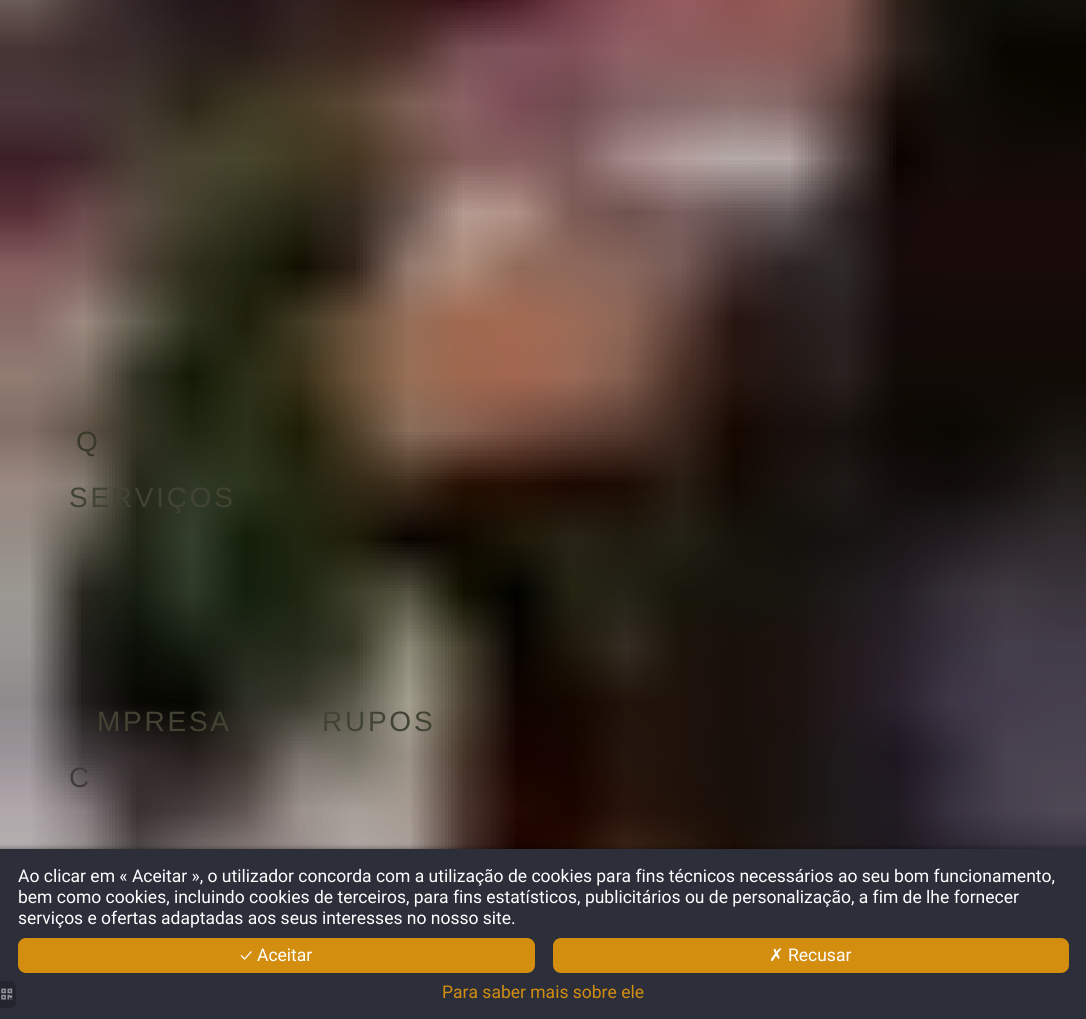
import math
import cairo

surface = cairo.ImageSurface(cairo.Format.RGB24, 1086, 1019)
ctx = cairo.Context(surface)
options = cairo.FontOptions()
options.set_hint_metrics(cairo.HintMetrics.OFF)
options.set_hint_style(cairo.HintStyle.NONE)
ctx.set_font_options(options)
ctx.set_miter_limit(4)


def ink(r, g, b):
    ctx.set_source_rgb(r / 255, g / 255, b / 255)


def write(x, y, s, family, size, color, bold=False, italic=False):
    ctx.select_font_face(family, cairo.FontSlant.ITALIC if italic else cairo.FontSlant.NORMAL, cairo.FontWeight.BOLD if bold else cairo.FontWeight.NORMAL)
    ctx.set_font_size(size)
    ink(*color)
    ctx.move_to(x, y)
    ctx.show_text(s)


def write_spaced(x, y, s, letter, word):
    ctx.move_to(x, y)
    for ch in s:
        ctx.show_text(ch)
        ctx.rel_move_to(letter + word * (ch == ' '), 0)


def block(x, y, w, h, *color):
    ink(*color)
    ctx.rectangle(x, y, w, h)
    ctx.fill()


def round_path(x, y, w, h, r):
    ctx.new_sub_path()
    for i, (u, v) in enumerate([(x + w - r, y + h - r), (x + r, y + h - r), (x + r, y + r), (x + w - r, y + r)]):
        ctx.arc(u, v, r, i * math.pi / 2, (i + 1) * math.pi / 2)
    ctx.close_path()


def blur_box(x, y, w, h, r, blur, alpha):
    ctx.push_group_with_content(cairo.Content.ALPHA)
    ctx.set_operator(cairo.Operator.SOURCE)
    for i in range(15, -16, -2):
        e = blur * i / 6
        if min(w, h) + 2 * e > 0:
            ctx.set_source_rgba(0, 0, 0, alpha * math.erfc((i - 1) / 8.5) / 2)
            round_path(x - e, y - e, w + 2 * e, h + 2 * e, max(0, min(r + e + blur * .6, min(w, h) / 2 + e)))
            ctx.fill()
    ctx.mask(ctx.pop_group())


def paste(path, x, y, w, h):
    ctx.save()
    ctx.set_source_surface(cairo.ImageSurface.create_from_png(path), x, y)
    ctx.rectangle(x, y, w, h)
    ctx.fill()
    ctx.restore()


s1 = dict(family="Roboto", size=17.5, color=(255, 255, 255))
s2 = dict(family="Ubuntu", size=17.5, color=(255, 255, 255))
s3 = dict(family="DejaVu Sans", size=17.5, color=(255, 255, 255))
s4 = dict(family="Roboto", size=17.5, color=(211, 142, 16))

ink(255, 255, 255)
ctx.paint()
paste("pic1.png", 0, 0, 1086, 849)
ctx.select_font_face("Liberation Sans")
ctx.set_font_size(28)
ink(57, 57, 40)
write_spaced(76, 451, "Q", 2.75, 0)
ink(65, 67, 51)
write_spaced(69, 507, "SERVIÇOS", 2.75, 0)
write_spaced(97, 731, "MPRESA", 2.75, 0)
write_spaced(322, 731, "RUPOS", 2.75, 0)
ink(67, 58, 59)
write_spaced(69, 787, "C", 2.75, 0)
ink(0, 0, 0)
blur_box(0, 849, 1086, 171, 0, 3, 0.5)
block(0, 849, 1086, 170, 44, 46, 58)
ink(35, 37, 46)
ctx.new_path()
ctx.move_to(0, 981)
ctx.line_to(10, 981)
ctx.curve_to(13.5, 981, 16, 983.5, 16, 987)
ctx.line_to(16, 1002)
ctx.curve_to(16, 1005.5, 13.5, 1008, 10, 1008)
ctx.line_to(0, 1008)
ctx.close_path()
ctx.fill()
paste("pic2.png", 1, 988, 12, 12)
write(18, 882, "Ao clicar em « Aceitar », o utilizador concorda com a utilização de cookies para fins técnicos necessários ao seu bom funcionamento,", **s1)
write(18, 903, "bem como cookies, incluindo cookies de terceiros, para fins estatísticos, publicitários ou de personalização, a fim de lhe fornecer", **s1)
write(18, 924, "serviços e ofertas adaptadas aos seus interesses no nosso site.", **s1)
ink(211, 142, 16)
round_path(18, 938, 517, 35, 8)
ctx.fill()
write(240, 961, "✓", **s2)
write(257, 961, "Aceitar", **s1)
ink(211, 142, 16)
round_path(553, 938, 516, 35, 8)
ctx.fill()
write(769, 961, "✗", **s3)
write(788, 961, "Recusar", **s1)
write(442, 998, "Para saber mais sobre ele", **s4)
surface.write_to_png("screenshot.png")
